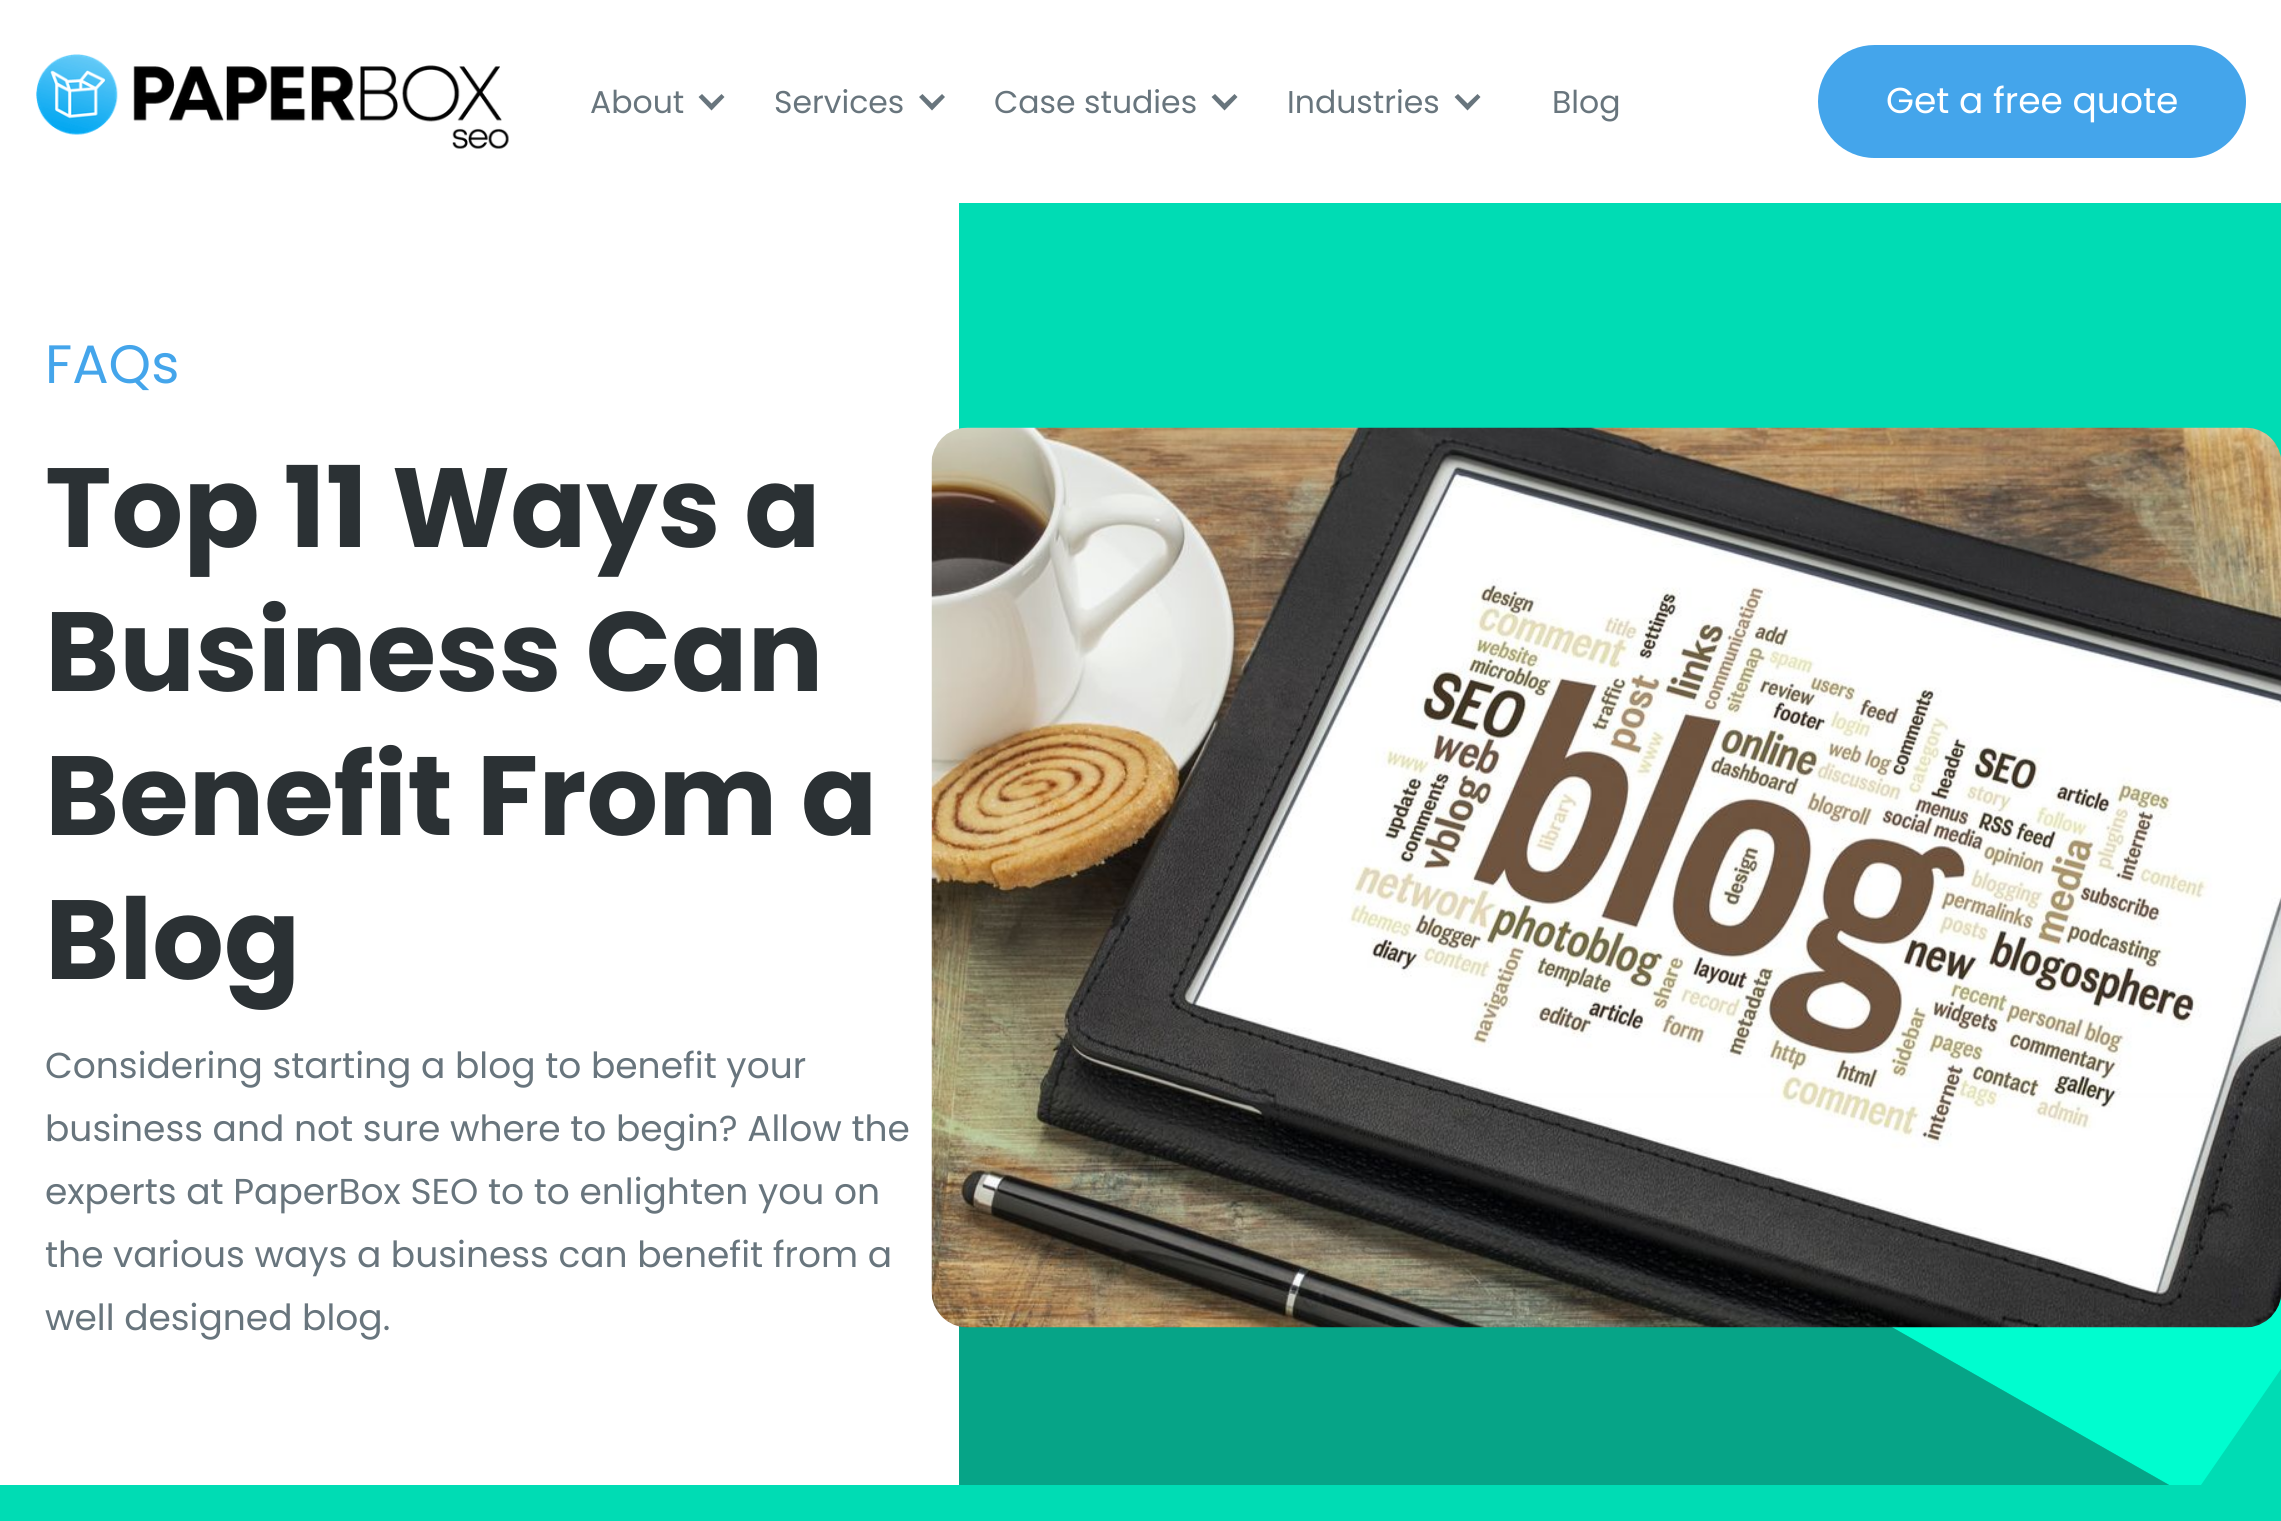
import math
import cairo

surface = cairo.ImageSurface(cairo.Format.RGB24, 2281, 1521)
ctx = cairo.Context(surface)
options = cairo.FontOptions()
options.set_hint_metrics(cairo.HintMetrics.OFF)
options.set_hint_style(cairo.HintStyle.NONE)
ctx.set_font_options(options)
ctx.set_miter_limit(4)


def ink(r, g, b):
    ctx.set_source_rgb(r / 255, g / 255, b / 255)


def write(x, y, s, family, size, color, bold=False, italic=False):
    ctx.select_font_face(family, cairo.FontSlant.ITALIC if italic else cairo.FontSlant.NORMAL, cairo.FontWeight.BOLD if bold else cairo.FontWeight.NORMAL)
    ctx.set_font_size(size)
    ink(*color)
    ctx.move_to(x, y)
    ctx.show_text(s)


def block(x, y, w, h, *color):
    ink(*color)
    ctx.rectangle(x, y, w, h)
    ctx.fill()


def round_path(x, y, w, h, r):
    ctx.new_sub_path()
    for i, (u, v) in enumerate([(x + w - r, y + h - r), (x + r, y + h - r), (x + r, y + r), (x + w - r, y + r)]):
        ctx.arc(u, v, r, i * math.pi / 2, (i + 1) * math.pi / 2)
    ctx.close_path()


def paste(path, x, y, w, h):
    ctx.save()
    ctx.set_source_surface(cairo.ImageSurface.create_from_png(path), x, y)
    ctx.rectangle(x, y, w, h)
    ctx.fill()
    ctx.restore()


s1 = dict(family="Poppins", size=31.5, color=(104, 117, 125))
s2 = dict(family="Poppins", size=36, color=(255, 255, 255))
s3 = dict(family="Poppins", size=54, color=(68, 165, 235))
s4 = dict(family="Poppins", size=112.5, color=(43, 49, 52), bold=True)
s5 = dict(family="Poppins", size=36, color=(104, 117, 125))

ink(255, 255, 255)
ctx.paint()
paste("pic1.png", 36, 54, 473, 95)
write(590, 113, "About", **s1)
ctx.new_path()
ctx.move_to(721.5, 94)
ctx.line_to(711.5, 103.5)
ctx.line_to(702, 94)
ctx.line_to(698.5, 97)
ctx.line_to(711.5, 110.5)
ctx.line_to(724.5, 97)
ctx.close_path()
ctx.fill()
write(774, 113, "Services", **s1)
ctx.new_path()
ctx.move_to(942, 94)
ctx.line_to(932, 103.5)
ctx.line_to(922.5, 94)
ctx.line_to(919, 97)
ctx.line_to(932, 110.5)
ctx.line_to(945, 97)
ctx.close_path()
ctx.fill()
write(994, 113, "Case studies", **s1)
ctx.new_path()
ctx.move_to(1234.5, 94)
ctx.line_to(1224.5, 103.5)
ctx.line_to(1215, 94)
ctx.line_to(1211.5, 97)
ctx.line_to(1224.5, 110.5)
ctx.line_to(1237.5, 97)
ctx.close_path()
ctx.fill()
write(1287, 113, "Industries", **s1)
ctx.new_path()
ctx.move_to(1477.5, 94)
ctx.line_to(1467.5, 103.5)
ctx.line_to(1458, 94)
ctx.line_to(1454.5, 97)
ctx.line_to(1467.5, 110.5)
ctx.line_to(1480.5, 97)
ctx.close_path()
ctx.fill()
write(1552, 113, "Blog", **s1)
ink(68, 165, 235)
round_path(1818, 45, 428, 113, 56.5)
ctx.fill()
write(1886, 113, "Get a free quote", **s2)
block(959, 203, 1322, 1282, 0, 220, 180)
ink(0, 253, 207)
ctx.new_path()
ctx.move_to(2192, 1498)
ctx.line_to(1421, 1059)
ctx.line_to(1753, 583)
ctx.line_to(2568, 953)
ctx.close_path()
ctx.fill()
ctx.save()
ctx.rectangle(959, 203, 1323, 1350)
ctx.clip()
ink(6, 164, 135)
ctx.new_path()
ctx.move_to(932, 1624)
ctx.line_to(2192, 1498)
ctx.line_to(1421, 1059)
ctx.line_to(135, 1172)
ctx.close_path()
ctx.fill()
ctx.restore()
write(45, 383, "FAQs", **s3)
write(45, 547, "Top 11 Ways a", **s4)
write(45, 691, "Business Can", **s4)
write(45, 835, "Benefit From a", **s4)
write(45, 979, "Blog", **s4)
write(45, 1078, "Considering starting a blog to benefit your", **s5)
write(45, 1141, "business and not sure where to begin? Allow the", **s5)
write(45, 1204, "experts at PaperBox SEO to to enlighten you on", **s5)
write(45, 1267, "the various ways a business can benefit from a", **s5)
write(45, 1330, "well designed blog.", **s5)
paste("pic2.png", 931, 427, 1350, 901)
block(0, 1485, 2281, 36, 0, 220, 180)
surface.write_to_png("screenshot.png")
